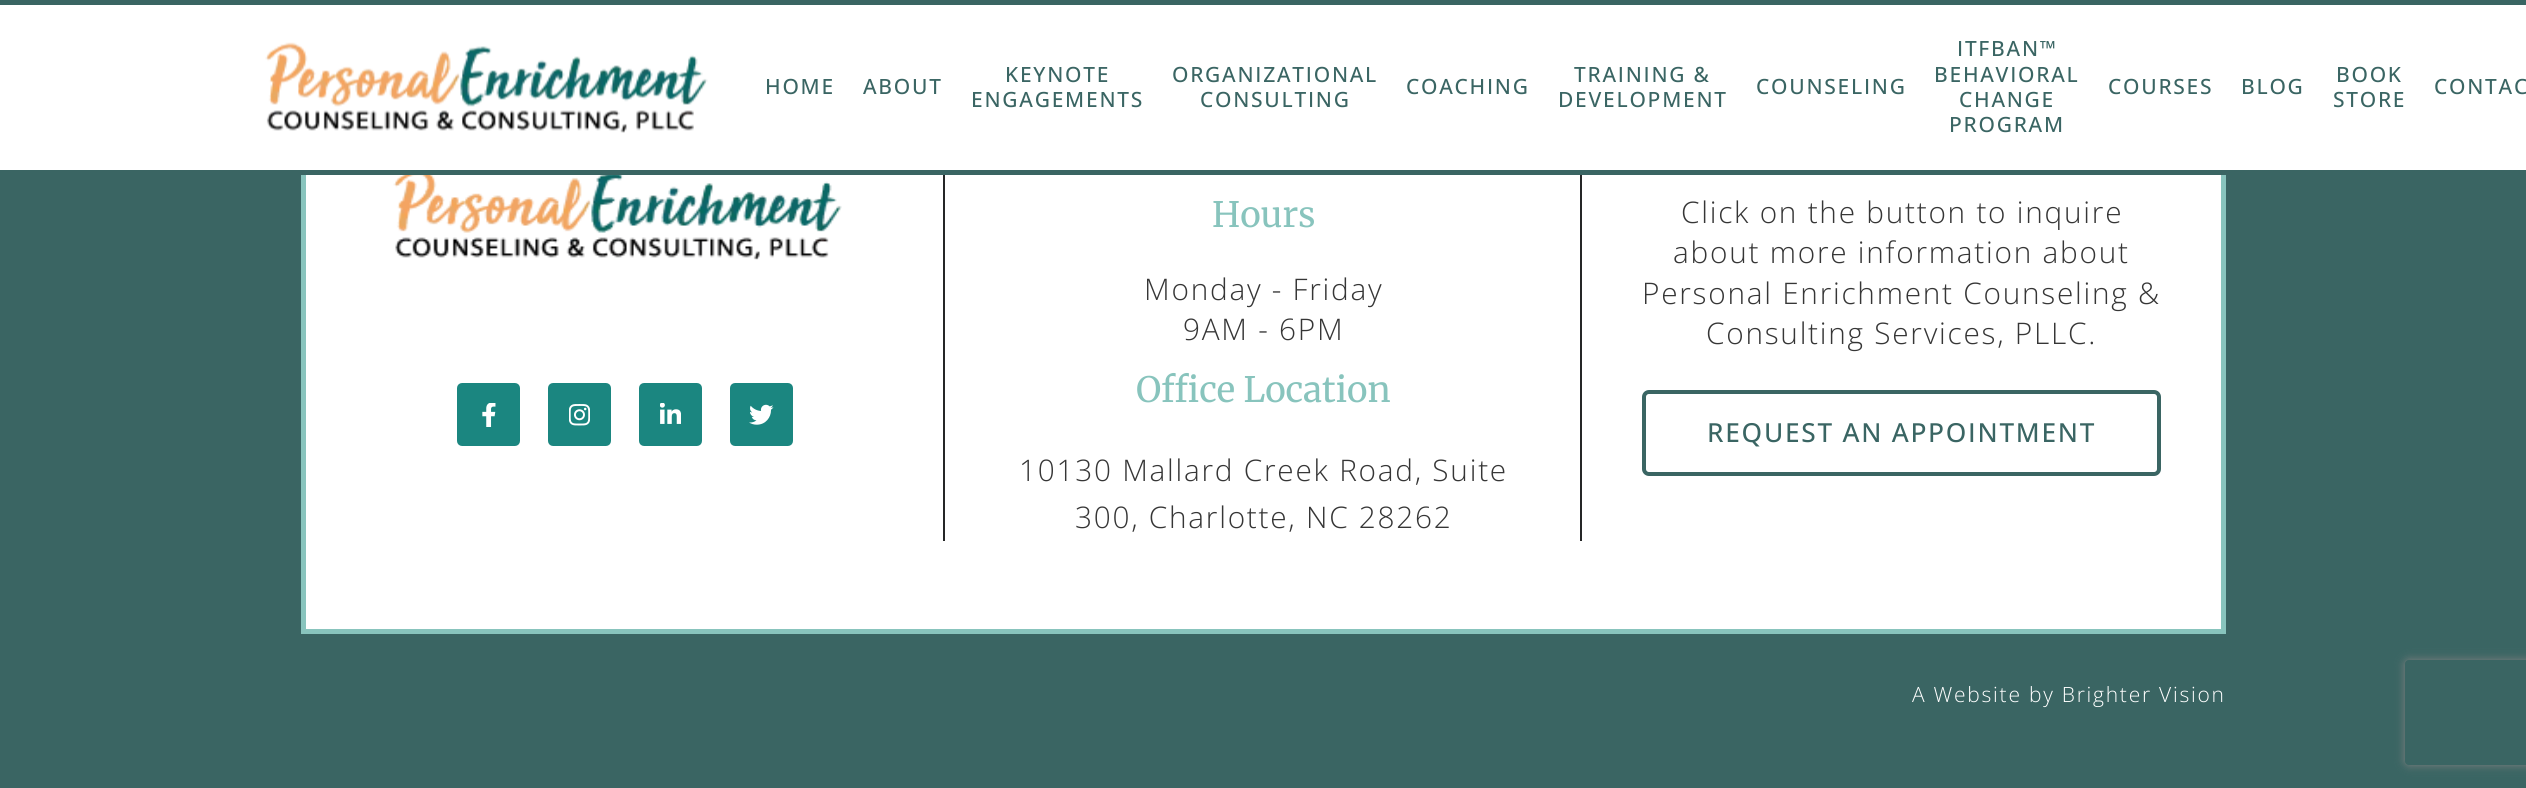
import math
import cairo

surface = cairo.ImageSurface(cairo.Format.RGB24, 2526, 788)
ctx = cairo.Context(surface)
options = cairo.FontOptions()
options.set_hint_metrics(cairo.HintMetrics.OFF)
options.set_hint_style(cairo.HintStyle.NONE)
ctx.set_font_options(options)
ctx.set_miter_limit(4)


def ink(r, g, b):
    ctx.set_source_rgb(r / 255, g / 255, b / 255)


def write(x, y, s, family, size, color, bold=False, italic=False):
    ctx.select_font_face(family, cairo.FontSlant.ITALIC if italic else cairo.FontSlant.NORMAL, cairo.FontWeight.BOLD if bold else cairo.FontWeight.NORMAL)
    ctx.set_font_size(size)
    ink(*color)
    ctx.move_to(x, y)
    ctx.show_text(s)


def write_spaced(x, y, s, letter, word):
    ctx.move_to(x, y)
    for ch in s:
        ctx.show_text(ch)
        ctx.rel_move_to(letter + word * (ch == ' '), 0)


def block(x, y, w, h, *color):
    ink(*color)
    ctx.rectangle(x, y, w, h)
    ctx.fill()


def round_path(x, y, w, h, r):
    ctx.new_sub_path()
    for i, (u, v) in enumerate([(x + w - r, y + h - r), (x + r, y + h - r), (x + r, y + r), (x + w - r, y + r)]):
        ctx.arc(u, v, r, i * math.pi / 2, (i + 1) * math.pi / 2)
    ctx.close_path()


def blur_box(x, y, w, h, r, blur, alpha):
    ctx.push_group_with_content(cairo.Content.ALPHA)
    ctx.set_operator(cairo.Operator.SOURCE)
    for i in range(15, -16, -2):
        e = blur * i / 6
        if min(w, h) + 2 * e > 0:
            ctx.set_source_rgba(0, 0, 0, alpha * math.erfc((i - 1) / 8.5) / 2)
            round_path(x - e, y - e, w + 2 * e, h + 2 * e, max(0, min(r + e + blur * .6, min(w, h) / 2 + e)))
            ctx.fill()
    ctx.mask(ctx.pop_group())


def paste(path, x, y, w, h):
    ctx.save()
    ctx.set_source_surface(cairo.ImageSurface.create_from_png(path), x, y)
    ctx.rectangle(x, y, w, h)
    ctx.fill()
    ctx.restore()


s1 = dict(family="Merriweather", size=35, color=(136, 196, 189))

ink(58, 101, 99)
ctx.paint()
block(306, 175, 1915, 454, 255, 255, 255)
ctx.rectangle(303.5, 9.5, 1920, 622)
ink(136, 196, 189)
ctx.set_line_width(5)
ctx.stroke()
block(0, 5, 2526, 165, 255, 255, 255)
block(301, 170, 1925, 5, 58, 101, 99)
paste("pic1.png", 265, 42, 443, 91)
ctx.select_font_face("Open Sans Medium")
ctx.set_font_size(21)
write_spaced(765, 94, "HOME", 1.75, 0)
write_spaced(863, 94, "ABOUT", 1.75, 0)
write_spaced(1005, 82, "KEYNOTE", 1.75, 0)
write_spaced(971, 107, "ENGAGEMENTS", 1.75, 0)
write_spaced(1172, 82, "ORGANIZATIONAL", 1.75, 0)
write_spaced(1200, 107, "CONSULTING", 1.75, 0)
write_spaced(1406, 94, "COACHING", 1.75, 0)
write_spaced(1574, 82, "TRAINING &", 1.75, 0)
write_spaced(1558, 107, "DEVELOPMENT", 1.75, 0)
write_spaced(1756, 94, "COUNSELING", 1.75, 0)
write_spaced(1957, 56, "ITFBAN™", 1.75, 0)
write_spaced(1934, 82, "BEHAVIORAL", 1.75, 0)
write_spaced(1959, 107, "CHANGE", 1.75, 0)
write_spaced(1949, 132, "PROGRAM", 1.75, 0)
write_spaced(2108, 94, "COURSES", 1.75, 0)
write_spaced(2241, 94, "BLOG", 1.75, 0)
write_spaced(2336, 82, "BOOK", 1.75, 0)
write_spaced(2333, 107, "STORE", 1.75, 0)
write_spaced(2434, 94, "CONTAC", 1.75, 0)
paste("pic2.png", 393, 175, 449, 85)
block(943, 175, 2, 366, 37, 38, 39)
ink(27, 134, 128)
round_path(459.5, 385.5, 58, 58, 2.5)
ctx.fill_preserve()
ctx.stroke()
paste("pic3.png", 482, 403, 14, 24)
round_path(550.5, 385.5, 58, 58, 2.5)
ctx.fill_preserve()
ctx.stroke()
paste("pic4.png", 569, 404, 21, 22)
round_path(641.5, 385.5, 58, 58, 2.5)
ctx.fill_preserve()
ctx.stroke()
paste("pic5.png", 660, 403, 21, 21)
round_path(732.5, 385.5, 58, 58, 2.5)
ctx.fill_preserve()
ctx.stroke()
paste("pic6.png", 749, 404, 25, 21)
write(1212, 227, "Hours", **s1)
ctx.select_font_face("Open Sans Light")
ctx.set_font_size(29.75)
ink(54, 54, 54)
write_spaced(1144, 300, "Monday - Friday", 1.75, 0)
write_spaced(1183, 340, "9AM - 6PM", 1.75, 0)
write(1136, 402, "Office Location", **s1)
ctx.select_font_face("Open Sans Light")
ctx.set_font_size(29.75)
ink(54, 54, 54)
write_spaced(1019, 481, "10130 Mallard Creek Road, Suite", 1.75, 0)
write_spaced(1075, 528, "300, Charlotte, NC 28262", 1.75, 0)
block(1580, 175, 2, 366, 37, 38, 39)
ink(54, 54, 54)
write_spaced(1681, 223, "Click on the button to inquire", 1.75, 0)
write_spaced(1673, 263, "about more information about", 1.75, 0)
write_spaced(1642, 304, "Personal Enrichment Counseling &", 1.75, 0)
write_spaced(1706, 344, "Consulting Services, PLLC.", 1.75, 0)
round_path(1644, 392, 515, 82, 5)
ink(58, 101, 99)
ctx.set_line_width(4)
ctx.stroke()
ctx.select_font_face("Open Sans Medium")
ctx.set_font_size(26.25)
write_spaced(1707, 442, "REQUEST AN APPOINTMENT", 1.75, 0)
ctx.select_font_face("Open Sans Light")
ctx.set_font_size(21)
ink(255, 255, 255)
write_spaced(1912, 702, "A Website by Brighter Vision", 1.75, 0)
ctx.save()
ctx.set_fill_rule(cairo.FillRule.EVEN_ODD)
ctx.new_path()
ctx.move_to(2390, 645)
ctx.line_to(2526, 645)
ctx.line_to(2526, 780)
ctx.line_to(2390, 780)
ctx.close_path()
ctx.move_to(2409, 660)
ctx.line_to(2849, 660)
ctx.curve_to(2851, 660, 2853, 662, 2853, 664)
ctx.line_to(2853, 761)
ctx.curve_to(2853, 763, 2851, 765, 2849, 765)
ctx.line_to(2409, 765)
ctx.curve_to(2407, 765, 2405, 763, 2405, 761)
ctx.line_to(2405, 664)
ctx.curve_to(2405, 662, 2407, 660, 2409, 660)
ctx.close_path()
ctx.clip()
ink(128, 128, 128)
blur_box(2405, 660, 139, 105, 4, 4.5, 1)
ctx.restore()
surface.write_to_png("screenshot.png")
